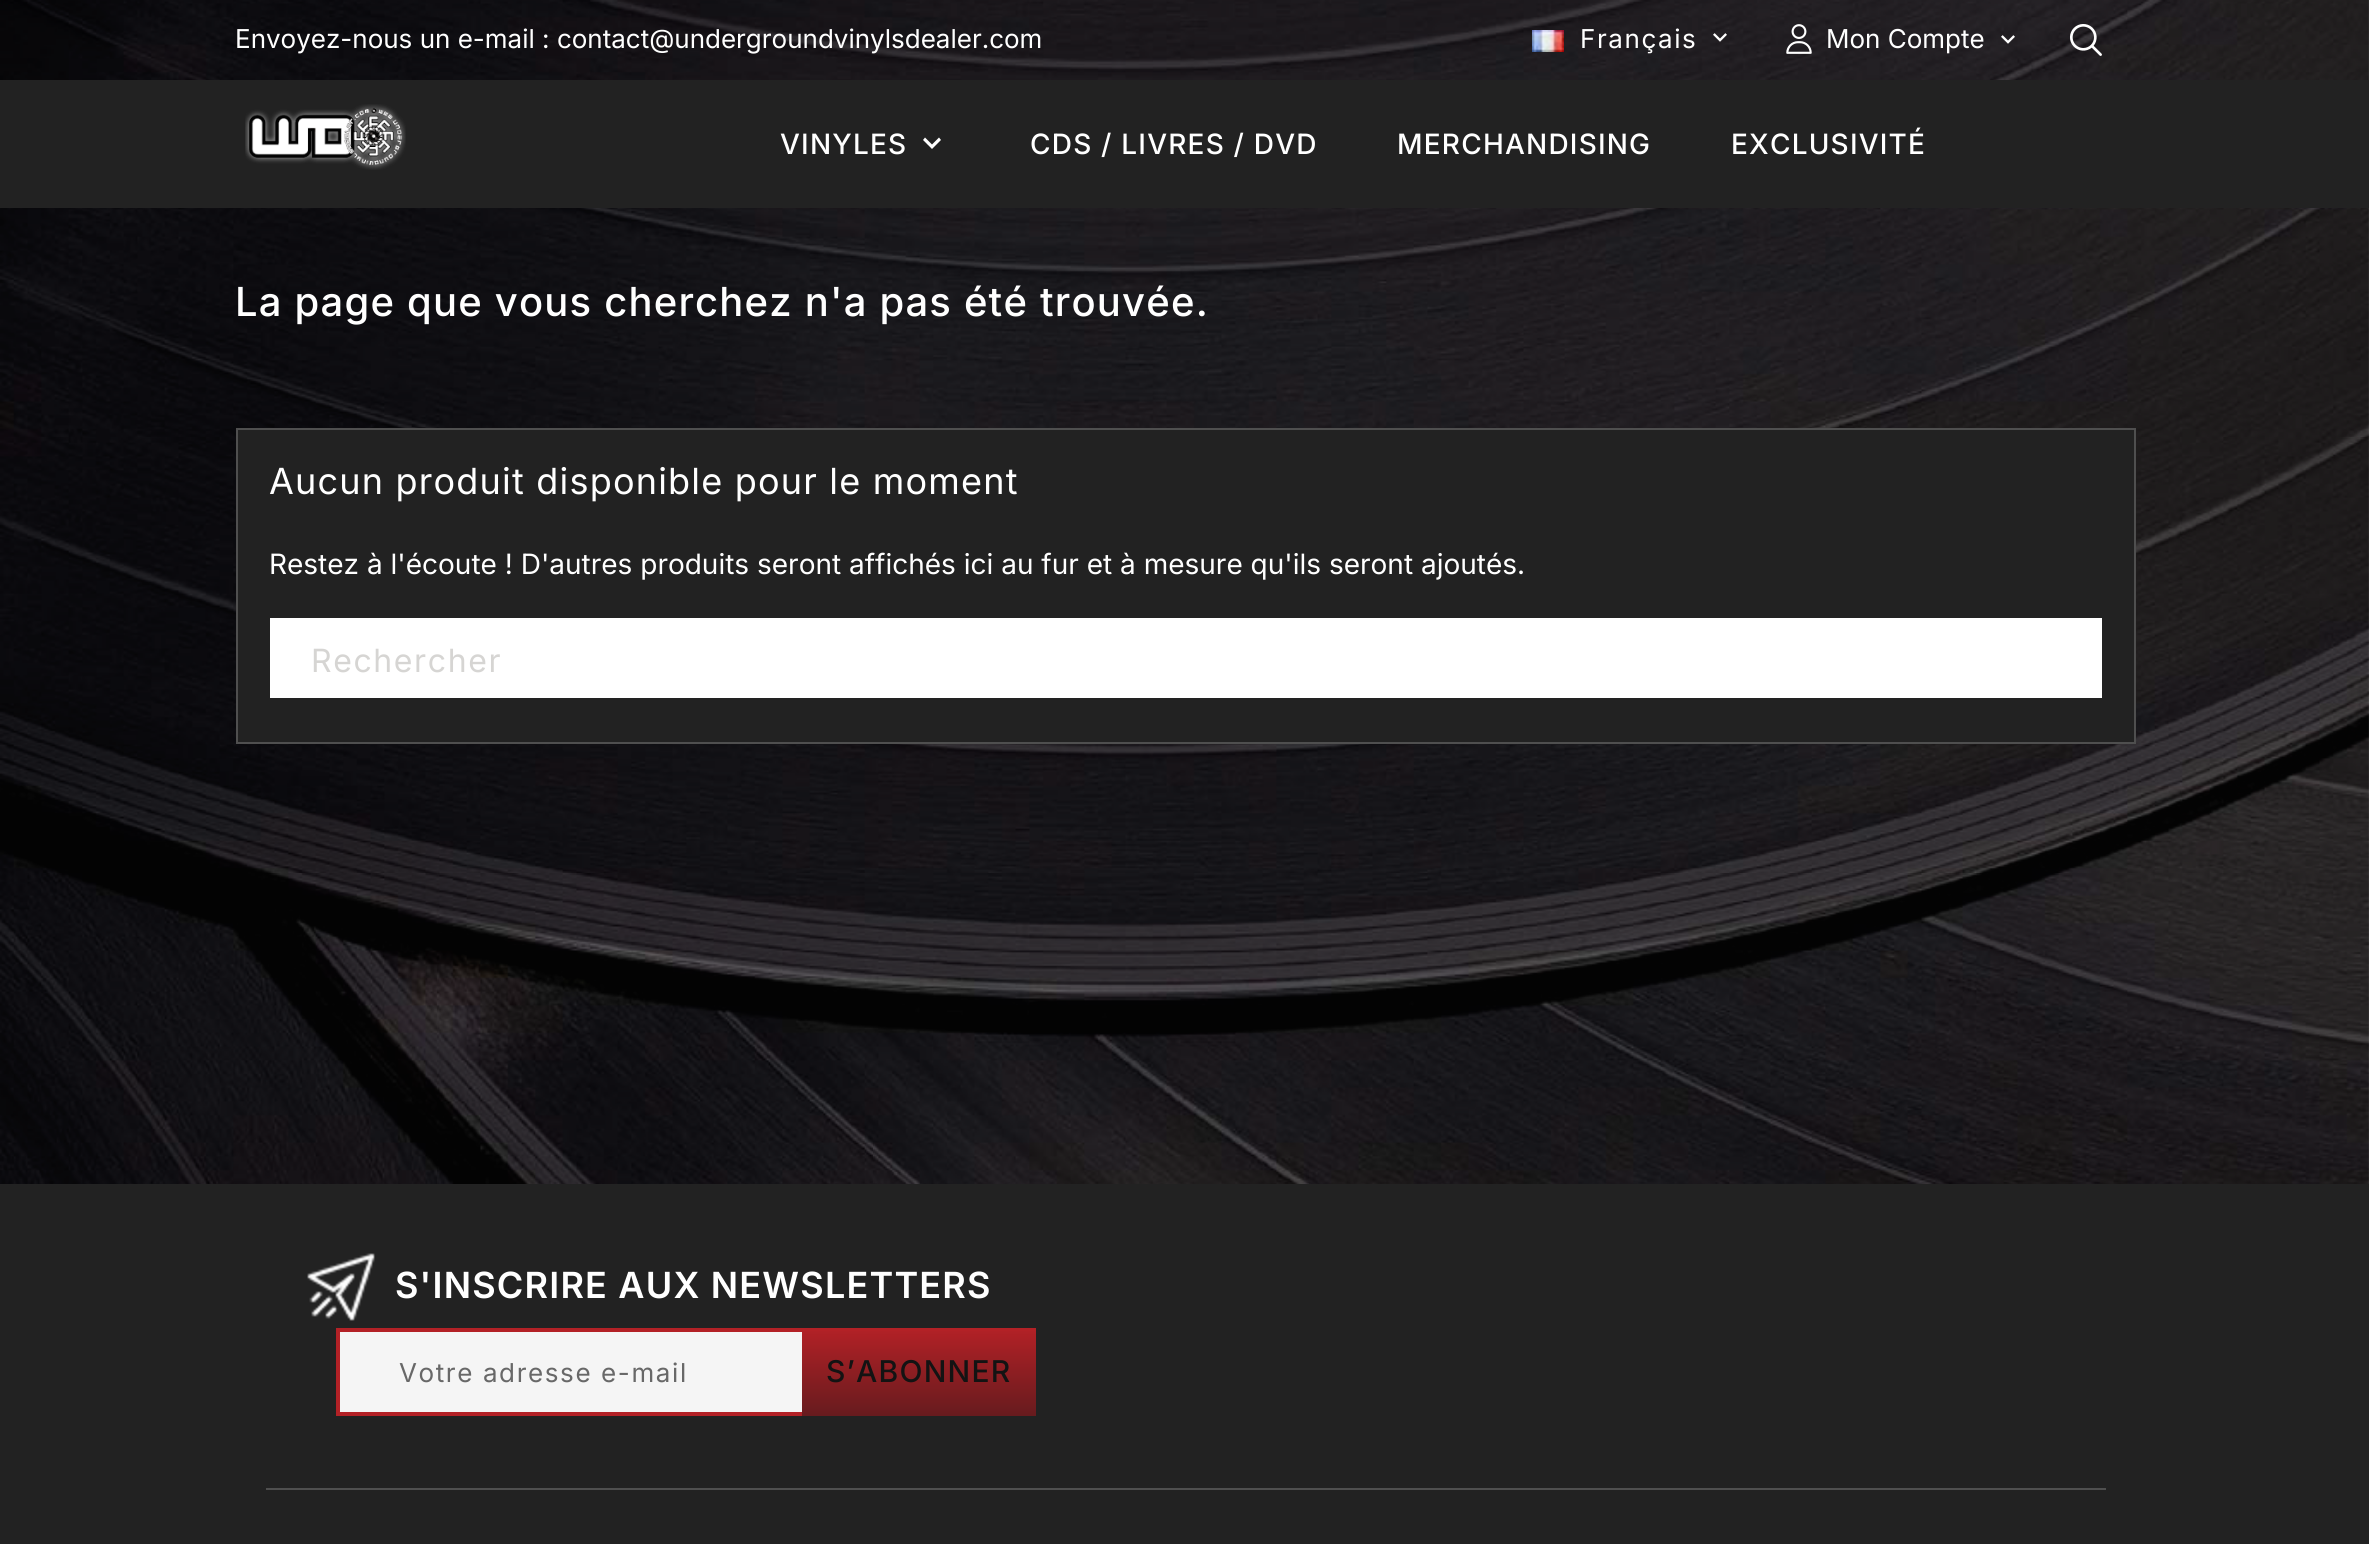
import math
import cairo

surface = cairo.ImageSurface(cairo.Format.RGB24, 2369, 1544)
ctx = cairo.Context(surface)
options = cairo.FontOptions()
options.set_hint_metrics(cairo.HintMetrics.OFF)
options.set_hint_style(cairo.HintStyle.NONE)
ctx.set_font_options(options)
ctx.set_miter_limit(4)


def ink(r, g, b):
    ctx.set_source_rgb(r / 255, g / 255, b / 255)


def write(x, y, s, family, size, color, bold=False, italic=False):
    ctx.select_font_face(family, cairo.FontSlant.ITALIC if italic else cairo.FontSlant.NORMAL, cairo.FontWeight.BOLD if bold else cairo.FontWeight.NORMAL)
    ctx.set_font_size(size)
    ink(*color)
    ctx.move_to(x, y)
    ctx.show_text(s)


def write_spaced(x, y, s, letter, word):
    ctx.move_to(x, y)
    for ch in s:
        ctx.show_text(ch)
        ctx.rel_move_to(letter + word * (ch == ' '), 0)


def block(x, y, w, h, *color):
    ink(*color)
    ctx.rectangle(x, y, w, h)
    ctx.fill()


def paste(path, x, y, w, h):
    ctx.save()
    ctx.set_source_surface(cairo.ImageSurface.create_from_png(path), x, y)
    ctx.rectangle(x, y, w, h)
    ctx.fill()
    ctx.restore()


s1 = dict(family="Inter", size=26, color=(255, 255, 255))
s2 = dict(family="Inter", size=28, color=(255, 255, 255))

ink(255, 255, 255)
ctx.paint()
paste("pic1.png", 0, 0, 2369, 1184)
write(235, 48, "Envoyez-nous un e-mail : contact@undergroundvinylsdealer.com", **s1)
paste("pic2.png", 1532, 30, 32, 22)
write_spaced(1580, 48, "Français", 1.6, 0)
paste("pic3.png", 1713, 33, 14, 9)
paste("pic4.png", 1786, 24, 26, 30)
write(1826, 48, "Mon Compte", **s1)
paste("pic5.png", 2001, 35, 14, 9)
paste("pic6.png", 2070, 24, 32, 32)
block(0, 80, 2369, 128, 34, 34, 34)
paste("pic7.png", 245, 104, 161, 66)
ctx.select_font_face("Inter Medium")
ctx.set_font_size(28)
ink(255, 255, 255)
write_spaced(780, 154, "VINYLES", 1.2, 0)
ctx.new_path()
ctx.move_to(925, 137.5)
ctx.line_to(932, 144.5)
ctx.line_to(939, 137.5)
ctx.line_to(941, 140)
ctx.line_to(932, 149)
ctx.line_to(923, 140)
ctx.close_path()
ctx.fill()
write_spaced(1030, 154, "CDS / LIVRES / DVD", 1.2, 0)
write_spaced(1397, 154, "MERCHANDISING", 1.2, 0)
write_spaced(1731, 154, "EXCLUSIVITÉ", 1.2, 0)
ctx.set_font_size(40)
write_spaced(235, 316, "La page que vous cherchez n'a pas été trouvée.", 1.2, 0)
ink(34, 34, 34)
ctx.rectangle(237, 429, 1898, 314)
ctx.fill_preserve()
ink(79, 79, 79)
ctx.stroke()
ctx.select_font_face("Inter")
ctx.set_font_size(36)
ink(255, 255, 255)
write_spaced(269, 494, "Aucun produit disponible pour le moment", 1.2, 0)
write(269, 574, "Restez à l'écoute ! D'autres produits seront affichés ici au fur et à mesure qu'ils seront ajoutés.", **s2)
block(270, 618, 1832, 80, 255, 255, 255)
ctx.set_font_size(32)
ink(214, 213, 211)
write_spaced(311, 672, "Rechercher", 1.6, 0)
block(0, 1184, 2369, 360, 34, 34, 34)
block(266, 1488, 1840, 2, 79, 79, 79)
paste("pic8.png", 307, 1253, 68, 68)
ctx.select_font_face("Inter SemiBold")
ctx.set_font_size(36)
ink(255, 255, 255)
write_spaced(395, 1298, "S'INSCRIRE AUX NEWSLETTERS", 1.2, 0)
block(340, 1332, 462, 80, 245, 245, 245)
ctx.rectangle(338, 1330, 696, 84)
ink(179, 33, 38)
ctx.set_line_width(4)
ctx.stroke()
ctx.select_font_face("Inter")
ctx.set_font_size(26)
ink(104, 104, 104)
write_spaced(399, 1382, "Votre adresse e-mail", 1.6, 0)
gradient = cairo.LinearGradient(919, 1416, 919, 1328)
gradient.add_color_stop_rgba(0, 0.404, 0.106, 0.118, 1)
gradient.add_color_stop_rgba(1, 0.702, 0.129, 0.149, 1)
ctx.set_source(gradient)
ctx.rectangle(802, 1331, 234, 85)
ctx.fill()
ctx.select_font_face("Inter Medium")
ctx.set_font_size(30)
ink(19, 19, 19)
write_spaced(826, 1382, "S’ABONNER", 1.2, 0)
surface.write_to_png("screenshot.png")
